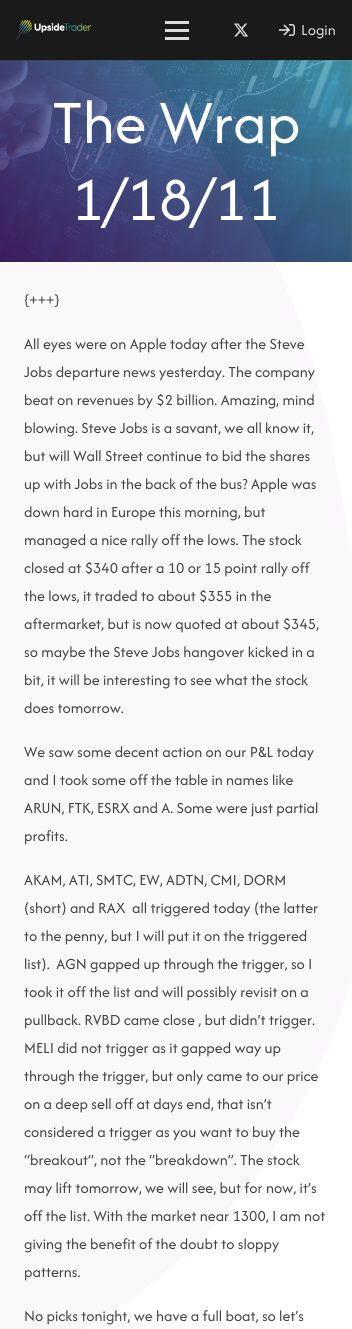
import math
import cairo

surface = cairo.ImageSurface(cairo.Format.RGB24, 352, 1329)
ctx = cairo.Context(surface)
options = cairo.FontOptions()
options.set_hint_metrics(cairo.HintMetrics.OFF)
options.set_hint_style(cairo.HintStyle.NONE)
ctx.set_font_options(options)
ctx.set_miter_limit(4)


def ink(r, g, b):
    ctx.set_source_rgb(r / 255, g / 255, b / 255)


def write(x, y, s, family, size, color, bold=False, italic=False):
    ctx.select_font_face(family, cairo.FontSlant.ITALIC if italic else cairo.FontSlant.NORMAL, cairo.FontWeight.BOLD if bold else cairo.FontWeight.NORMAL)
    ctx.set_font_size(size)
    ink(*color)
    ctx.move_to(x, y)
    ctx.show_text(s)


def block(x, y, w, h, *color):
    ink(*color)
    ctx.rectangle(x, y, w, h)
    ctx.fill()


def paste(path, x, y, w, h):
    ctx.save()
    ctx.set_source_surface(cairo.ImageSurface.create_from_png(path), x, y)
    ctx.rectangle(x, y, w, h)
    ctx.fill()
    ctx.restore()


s1 = dict(family="Afacad", size=16, color=(221, 221, 221))
s2 = dict(family="Afacad", size=64, color=(255, 255, 255))
s3 = dict(family="Afacad", size=16, color=(68, 68, 68))

ink(255, 255, 255)
ctx.paint()
paste("pic4.png", 0, 60, 352, 202)
gradient = cairo.LinearGradient(313, -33, 39, 295)
gradient.add_color_stop_rgba(0, 0.227, 0.698, 0.745, 0.8)
gradient.add_color_stop_rgba(1, 0.22, 0.055, 0.361, 0.8)
ctx.set_source(gradient)
ctx.rectangle(0, 60, 352, 202)
ctx.fill()
ctx.set_source_rgba(0.549, 0.392, 0.682, 0.05)
ctx.new_path()
ctx.move_to(332, 444)
ctx.line_to(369, 651)
ctx.curve_to(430, 1002, 234, 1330, -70, 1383)
ctx.line_to(-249, 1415)
ctx.curve_to(-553, 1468, -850, 1227, -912, 877)
ctx.line_to(-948, 670)
ctx.curve_to(-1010, 319, -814, -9, -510, -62)
ctx.line_to(-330, -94)
ctx.curve_to(-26, -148, 270, 93, 332, 444)
ctx.close_path()
ctx.fill()
ctx.save()
ctx.rectangle(0, 0, 352, 262)
ctx.clip()
ctx.set_source_rgba(0.549, 0.392, 0.682, 0.1)
ctx.new_path()
ctx.move_to(332, 444)
ctx.line_to(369, 651)
ctx.curve_to(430, 1002, 234, 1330, -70, 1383)
ctx.line_to(-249, 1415)
ctx.curve_to(-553, 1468, -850, 1227, -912, 877)
ctx.line_to(-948, 670)
ctx.curve_to(-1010, 319, -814, -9, -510, -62)
ctx.line_to(-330, -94)
ctx.curve_to(-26, -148, 270, 93, 332, 444)
ctx.close_path()
ctx.fill()
ctx.restore()
ctx.set_source_rgba(0, 0, 0, 0.08)
ctx.rectangle(0, 60, 352, 1)
ctx.fill()
block(0, 0, 352, 60, 26, 26, 26)
paste("pic1.png", 16, 20, 75, 20)
block(165, 29, 24, 3, 221, 221, 221)
block(165, 21, 24, 3, 221, 221, 221)
block(165, 37, 24, 3, 221, 221, 221)
paste("pic2.png", 234, 23, 15, 14)
paste("pic3.png", 279, 24, 16, 12)
write(301, 35, "Login", **s1)
write(52, 143, "The Wrap", **s2)
write(71, 220, "1/18/11", **s2)
write(24, 305, "{+++}", **s3)
write(24, 349, "All eyes were on Apple today after the Steve", **s3)
write(24, 377, "Jobs departure news yesterday. The company", **s3)
write(24, 405, "beat on revenues by $2 billion. Amazing, mind", **s3)
write(24, 433, "blowing. Steve Jobs is a savant, we all know it,", **s3)
write(24, 461, "but will Wall Street continue to bid the shares", **s3)
write(24, 489, "up with Jobs in the back of the bus? Apple was", **s3)
write(24, 517, "down hard in Europe this morning, but", **s3)
write(24, 545, "managed a nice rally off the lows. The stock", **s3)
write(24, 573, "closed at $340 after a 10 or 15 point rally off", **s3)
write(24, 601, "the lows, it traded to about $355 in the", **s3)
write(24, 629, "aftermarket, but is now quoted at about $345,", **s3)
write(24, 657, "so maybe the Steve Jobs hangover kicked in a", **s3)
write(24, 685, "bit, it will be interesting to see what the stock", **s3)
write(24, 713, "does tomorrow.", **s3)
write(24, 757, "We saw some decent action on our P&L today", **s3)
write(24, 785, "and I took some off the table in names like", **s3)
write(24, 813, "ARUN, FTK, ESRX and A. Some were just partial", **s3)
write(24, 841, "profits.", **s3)
write(24, 885, "AKAM, ATI, SMTC, EW, ADTN, CMI, DORM", **s3)
write(24, 913, "(short) and RAX  all triggered today (the latter", **s3)
write(24, 941, "to the penny, but I will put it on the triggered", **s3)
write(24, 969, "list).  AGN gapped up through the trigger, so I", **s3)
write(24, 997, "took it off the list and will possibly revisit on a", **s3)
write(24, 1025, "pullback. RVBD came close , but didn’t trigger.", **s3)
write(24, 1053, "MELI did not trigger as it gapped way up", **s3)
write(24, 1081, "through the trigger, but only came to our price", **s3)
write(24, 1109, "on a deep sell off at days end, that isn’t", **s3)
write(24, 1137, "considered a trigger as you want to buy the", **s3)
write(24, 1165, "“breakout”, not the “breakdown”. The stock", **s3)
write(24, 1193, "may lift tomorrow, we will see, but for now, it’s", **s3)
write(24, 1221, "off the list. With the market near 1300, I am not", **s3)
write(24, 1249, "giving the benefit of the doubt to sloppy", **s3)
write(24, 1277, "patterns.", **s3)
write(24, 1321, "No picks tonight, we have a full boat, so let’s", **s3)
surface.write_to_png("screenshot.png")
